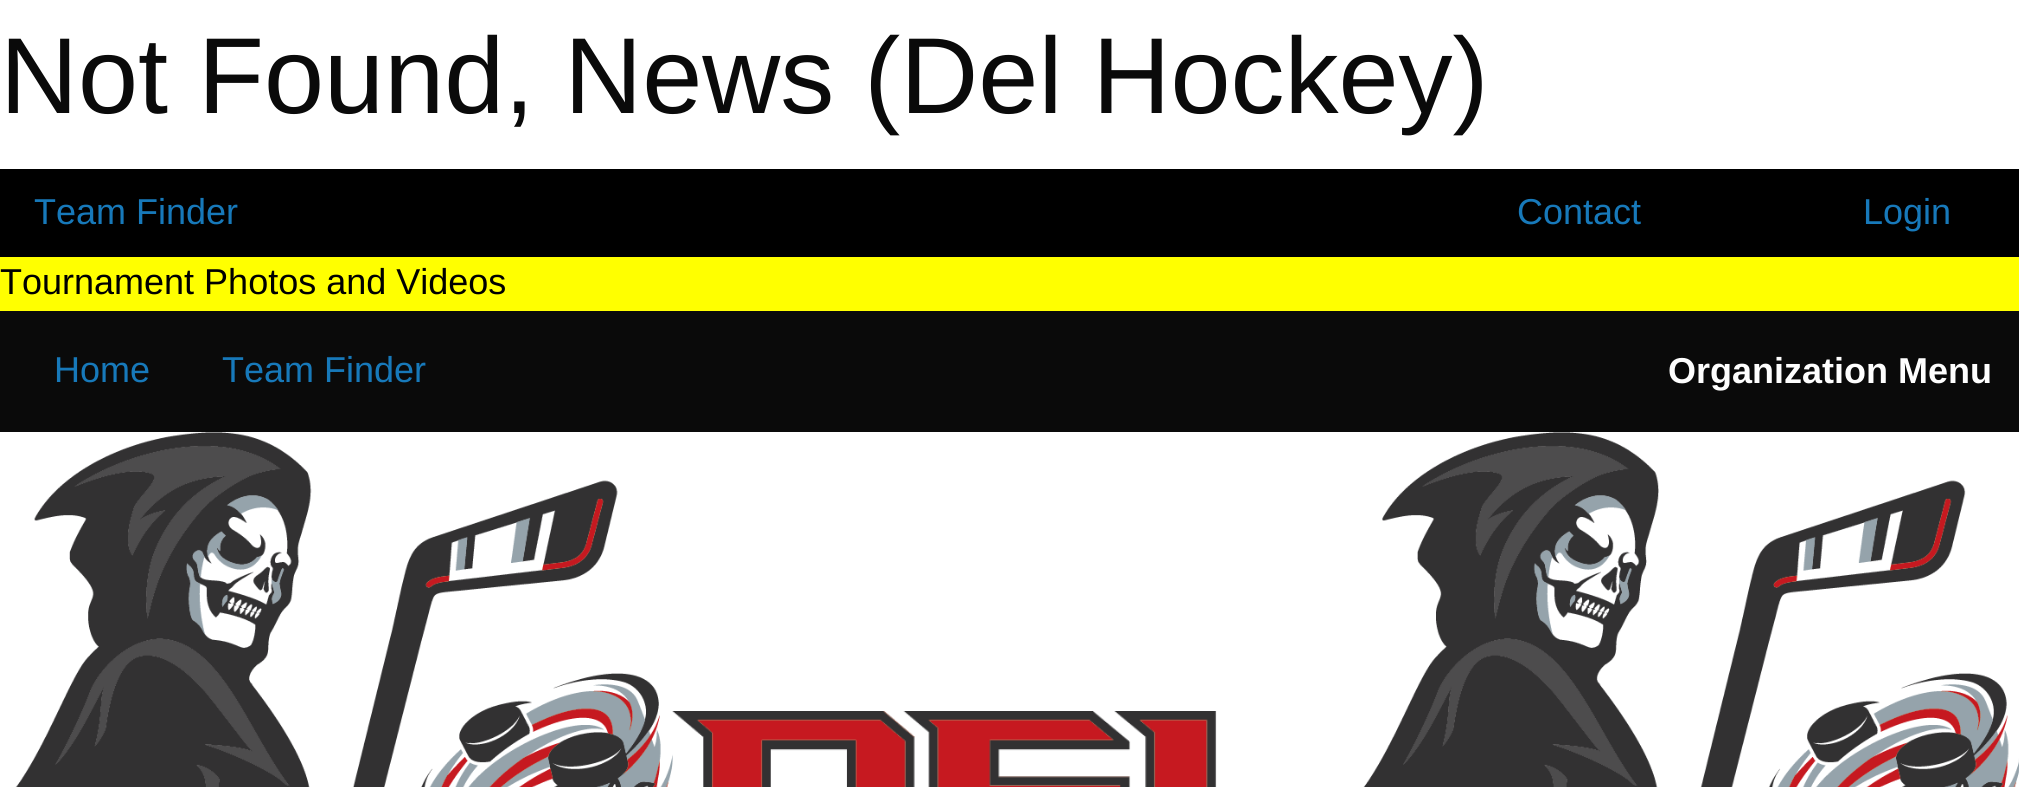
import math
import cairo

surface = cairo.ImageSurface(cairo.Format.RGB24, 2019, 787)
ctx = cairo.Context(surface)
options = cairo.FontOptions()
options.set_hint_metrics(cairo.HintMetrics.OFF)
options.set_hint_style(cairo.HintStyle.NONE)
ctx.set_font_options(options)
ctx.set_miter_limit(4)


def ink(r, g, b):
    ctx.set_source_rgb(r / 255, g / 255, b / 255)


def write(x, y, s, family, size, color, bold=False, italic=False):
    ctx.select_font_face(family, cairo.FontSlant.ITALIC if italic else cairo.FontSlant.NORMAL, cairo.FontWeight.BOLD if bold else cairo.FontWeight.NORMAL)
    ctx.set_font_size(size)
    ink(*color)
    ctx.move_to(x, y)
    ctx.show_text(s)


def block(x, y, w, h, *color):
    ink(*color)
    ctx.rectangle(x, y, w, h)
    ctx.fill()


def paste(path, x, y, w, h):
    ctx.save()
    ctx.set_source_surface(cairo.ImageSurface.create_from_png(path), x, y)
    ctx.rectangle(x, y, w, h)
    ctx.fill()
    ctx.restore()


s1 = dict(family="Liberation Sans", size=108, color=(10, 10, 10))
s2 = dict(family="Liberation Sans", size=36, color=(23, 121, 186))
s3 = dict(family="Liberation Sans", size=36, color=(0, 0, 0))
s4 = dict(family="Liberation Sans", size=36, color=(254, 254, 254), bold=True)

ink(255, 255, 255)
ctx.paint()
write(0, 113, "Not Found, News (Del Hockey)", **s1)
block(0, 169, 2019, 88, 0, 0, 0)
write(34, 224, "Team Finder", **s2)
write(1517, 224, "Contact", **s2)
write(1863, 224, "Login", **s2)
block(0, 257, 2019, 54, 255, 255, 0)
write(0, 294, "Tournament Photos and Videos", **s3)
block(0, 311, 2019, 121, 10, 10, 10)
write(54, 382, "Home", **s2)
write(222, 382, "Team Finder", **s2)
write(1668, 383, "Organization Menu", **s4)
paste("pic1.png", 15, 432, 658, 355)
paste("pic2.png", 672, 711, 545, 76)
paste("pic3.png", 1363, 432, 656, 355)
surface.write_to_png("screenshot.png")
